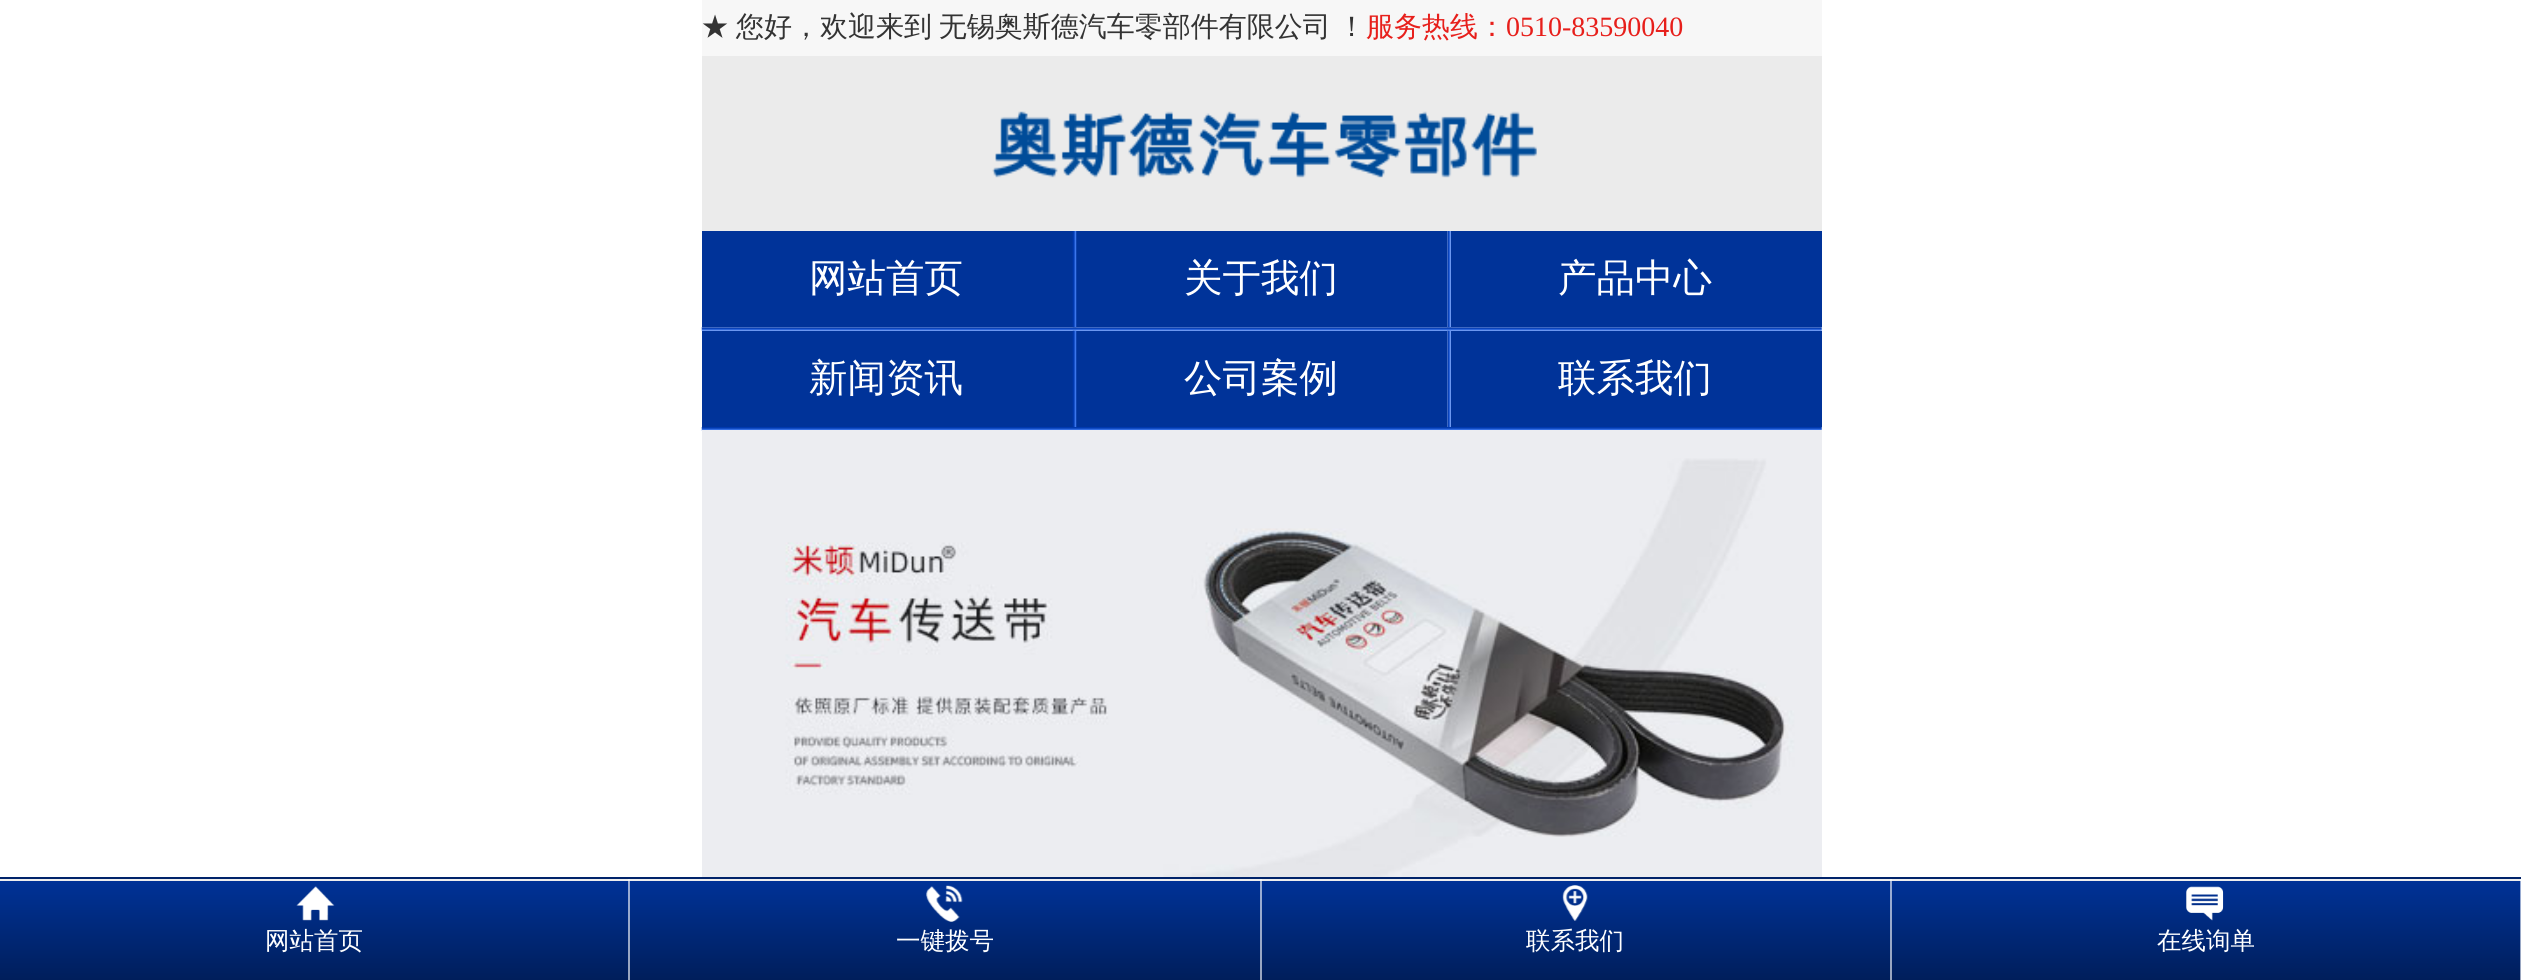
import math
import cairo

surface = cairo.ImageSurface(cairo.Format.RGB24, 2521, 980)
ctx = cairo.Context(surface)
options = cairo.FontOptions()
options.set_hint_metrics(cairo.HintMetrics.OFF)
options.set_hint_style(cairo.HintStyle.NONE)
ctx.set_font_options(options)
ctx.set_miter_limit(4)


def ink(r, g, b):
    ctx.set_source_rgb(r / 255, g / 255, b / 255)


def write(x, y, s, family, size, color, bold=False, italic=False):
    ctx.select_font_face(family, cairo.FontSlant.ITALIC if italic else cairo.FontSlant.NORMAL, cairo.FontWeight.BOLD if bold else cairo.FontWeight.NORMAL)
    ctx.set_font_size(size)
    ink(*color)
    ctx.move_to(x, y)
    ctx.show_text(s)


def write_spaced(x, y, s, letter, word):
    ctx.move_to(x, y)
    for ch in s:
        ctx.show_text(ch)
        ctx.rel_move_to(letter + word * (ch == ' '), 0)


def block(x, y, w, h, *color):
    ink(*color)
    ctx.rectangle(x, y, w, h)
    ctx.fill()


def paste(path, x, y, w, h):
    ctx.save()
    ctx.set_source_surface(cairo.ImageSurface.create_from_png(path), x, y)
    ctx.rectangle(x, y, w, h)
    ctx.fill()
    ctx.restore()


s1 = dict(family="WenQuanYi Zen Hei Medium", size=28, color=(231, 31, 27))
s2 = dict(family="Liberation Serif", size=28, color=(231, 31, 27))
s3 = dict(family="WenQuanYi Zen Hei Medium", size=38.5, color=(255, 255, 255))
s4 = dict(family="WenQuanYi Zen Hei Medium", size=24.5, color=(255, 255, 255))

ink(255, 255, 255)
ctx.paint()
block(702, 0, 1120, 56, 247, 247, 247)
ctx.select_font_face("WenQuanYi Zen Hei Medium")
ctx.set_font_size(28)
ink(51, 51, 51)
write_spaced(701, 36, "★ 您好，欢迎来到 无锡奥斯德汽车零部件有限公司 ！", 0, -1.5)
write(1366, 36, "服务热线：", **s1)
write(1506, 36, "0510-83590040", **s2)
block(702, 56, 1120, 175, 235, 235, 235)
paste("pic1.png", 992, 111, 545, 67)
block(702, 231, 371, 96, 0, 51, 153)
write(809, 291, "网站首页", **s3)
block(1076, 231, 371, 96, 0, 51, 153)
paste("pic2.png", 1072, 231, 5, 97)
write(1184, 291, "关于我们", **s3)
paste("pic3.png", 1447, 231, 4, 97)
block(1451, 231, 371, 96, 0, 51, 153)
write(1558, 291, "产品中心", **s3)
paste("pic4.png", 701, 327, 1121, 4)
block(702, 331, 371, 96, 0, 51, 153)
write(809, 391, "新闻资讯", **s3)
block(1076, 331, 371, 96, 0, 51, 153)
paste("pic5.png", 1072, 330, 5, 97)
write(1184, 391, "公司案例", **s3)
paste("pic6.png", 1447, 330, 4, 97)
block(1451, 331, 371, 96, 0, 51, 153)
write(1558, 391, "联系我们", **s3)
paste("pic7.png", 701, 427, 1121, 4)
paste("pic8.png", 702, 430, 1120, 447)
gradient = cairo.LinearGradient(1261, 878, 1261, 980)
gradient.add_color_stop_rgba(0, 0, 0.2, 0.6, 1)
gradient.add_color_stop_rgba(1, 0, 0.118, 0.357, 1)
ctx.set_source(gradient)
ctx.rectangle(0, 881, 2520, 99)
ctx.fill()
gradient = cairo.LinearGradient(1261, 878, 1261, 980)
gradient.add_color_stop_rgba(0, 0.6, 0.678, 0.839, 1)
gradient.add_color_stop_rgba(1, 0.6, 0.647, 0.741, 1)
ctx.set_source(gradient)
ctx.rectangle(2520, 879, 1, 101)
ctx.fill()
ctx.rectangle(1890, 879, 2, 101)
ctx.fill()
ctx.rectangle(628, 879, 2, 101)
ctx.fill()
block(0, 879, 2521, 2, 238, 238, 238)
block(2520, 879, 1, 2, 248, 248, 248)
block(1890, 879, 2, 2, 248, 248, 248)
block(628, 879, 2, 2, 248, 248, 248)
block(0, 877, 2521, 2, 0, 35, 106)
paste("pic9.png", 296, 886, 39, 35)
write(265, 949, "网站首页", **s4)
ctx.set_source_rgba(1, 1, 1, 0.6)
ctx.rectangle(1260, 879, 2, 101)
ctx.fill()
paste("pic10.png", 926, 885, 37, 37)
write(896, 949, "一键拨号", **s4)
paste("pic11.png", 1562, 885, 26, 36)
write(1526, 949, "联系我们", **s4)
paste("pic12.png", 2186, 886, 38, 35)
write(2157, 949, "在线询单", **s4)
surface.write_to_png("screenshot.png")
